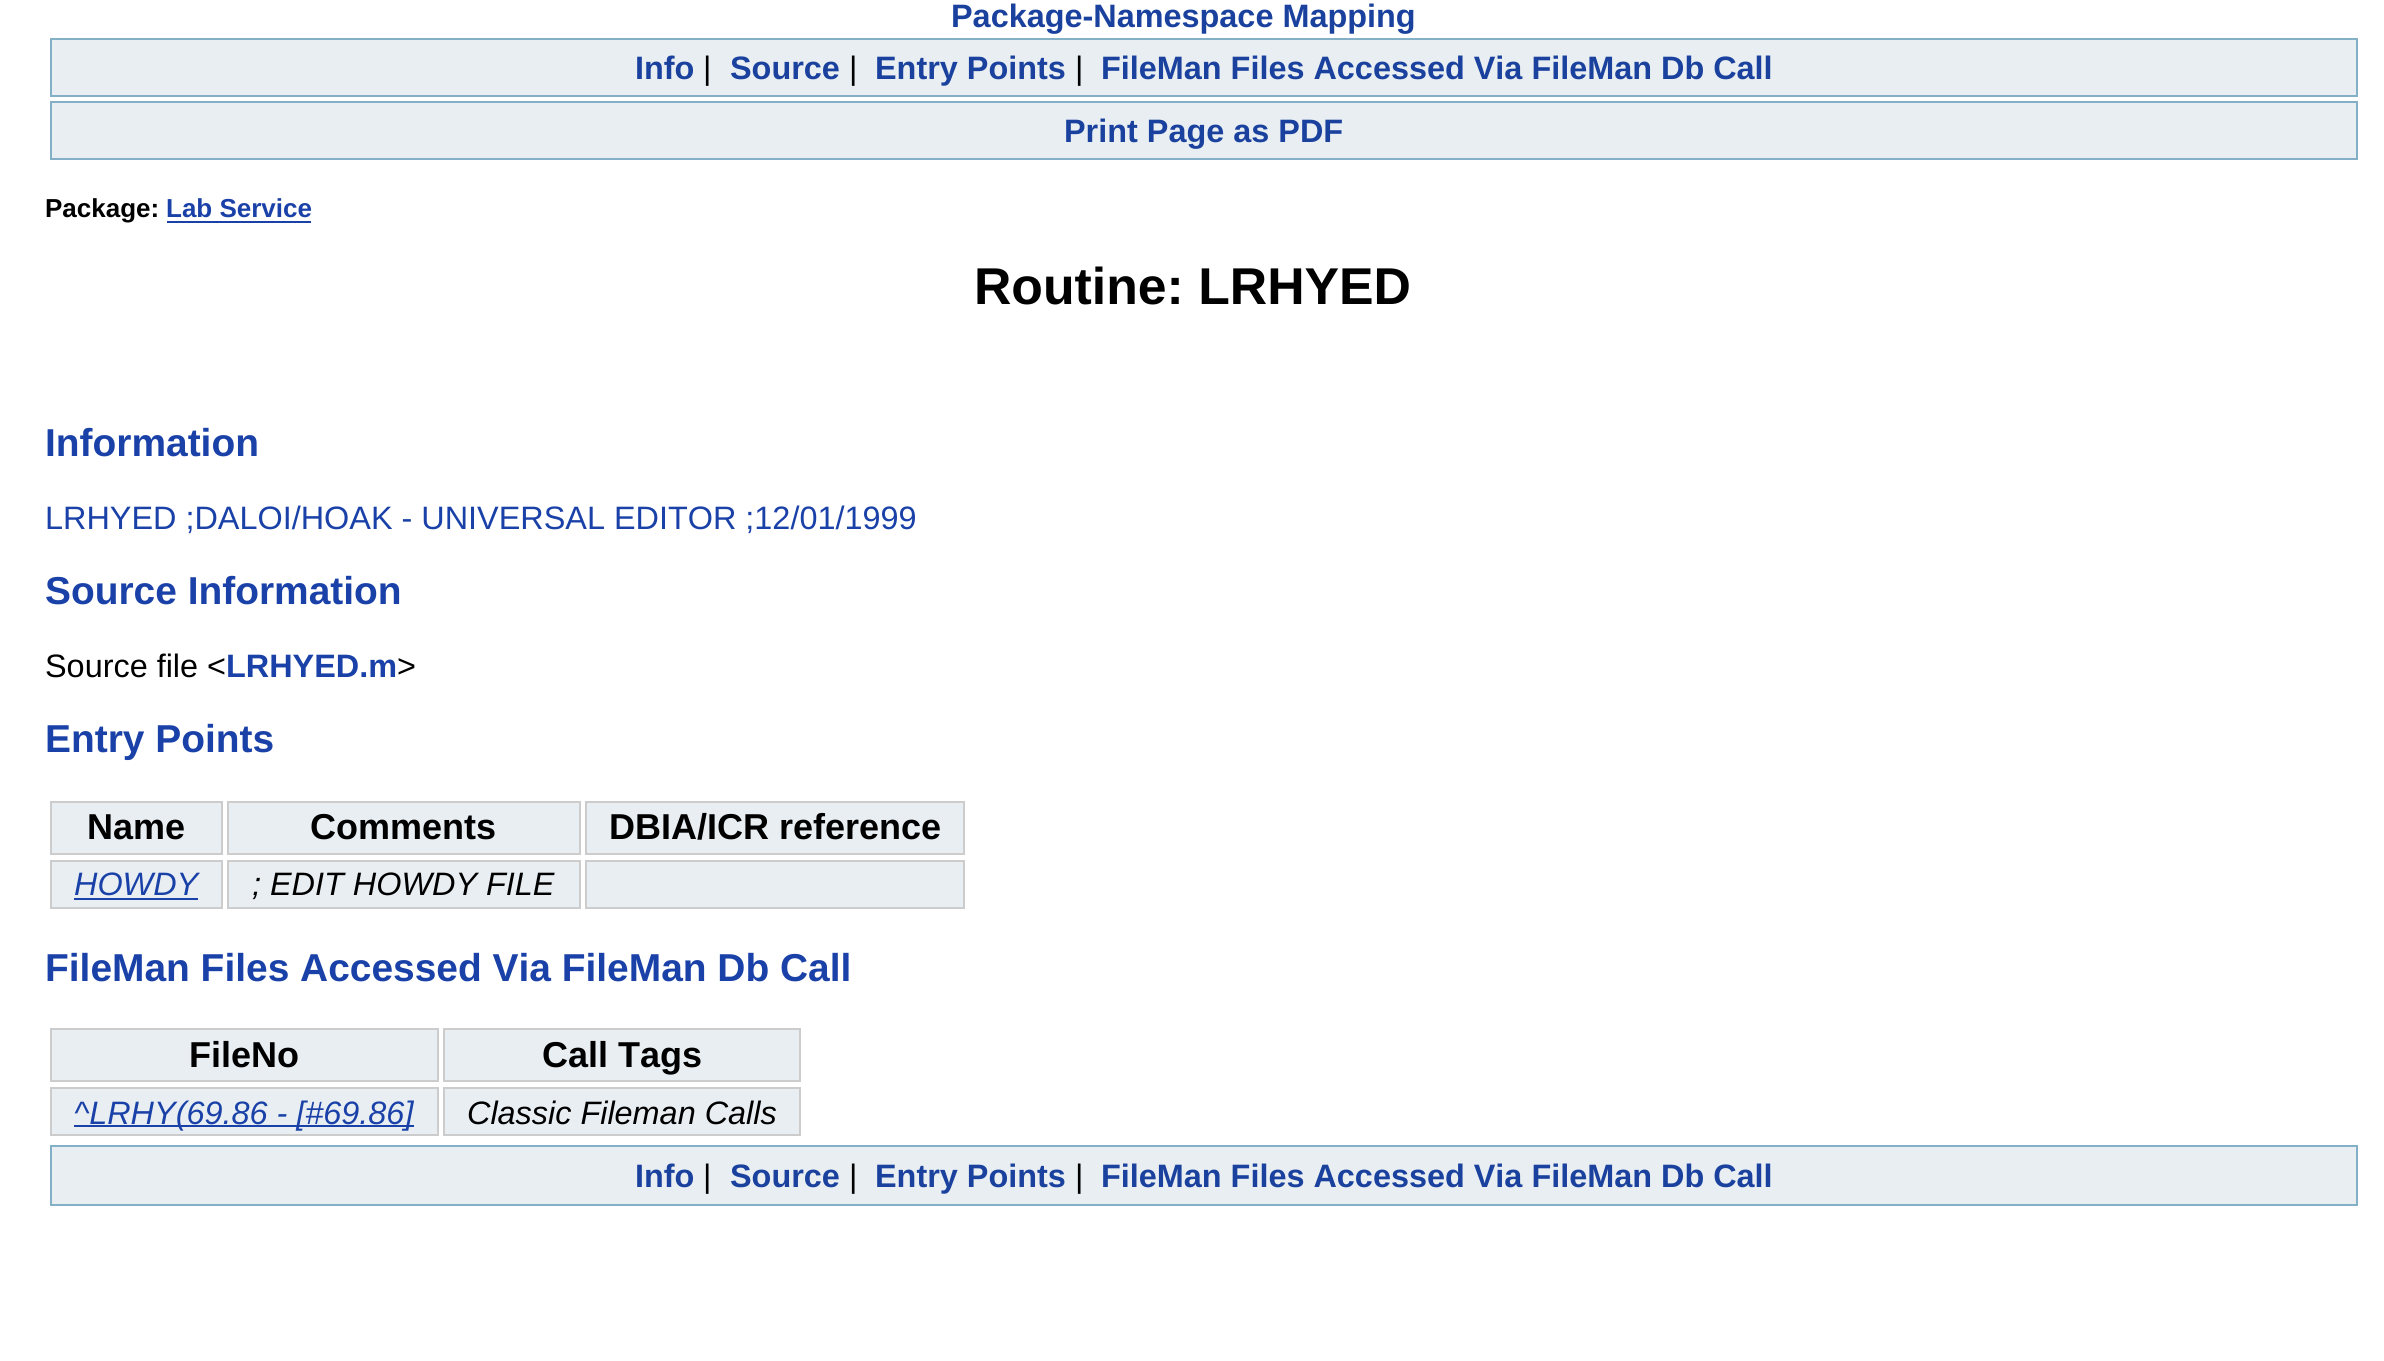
import math
import cairo

surface = cairo.ImageSurface(cairo.Format.RGB24, 2384, 1361)
ctx = cairo.Context(surface)
options = cairo.FontOptions()
options.set_hint_metrics(cairo.HintMetrics.OFF)
options.set_hint_style(cairo.HintStyle.NONE)
ctx.set_font_options(options)
ctx.set_miter_limit(4)


def ink(r, g, b):
    ctx.set_source_rgb(r / 255, g / 255, b / 255)


def write(x, y, s, family, size, color, bold=False, italic=False):
    ctx.select_font_face(family, cairo.FontSlant.ITALIC if italic else cairo.FontSlant.NORMAL, cairo.FontWeight.BOLD if bold else cairo.FontWeight.NORMAL)
    ctx.set_font_size(size)
    ink(*color)
    ctx.move_to(x, y)
    ctx.show_text(s)


def block(x, y, w, h, *color):
    ink(*color)
    ctx.rectangle(x, y, w, h)
    ctx.fill()


s1 = dict(family="Liberation Sans", size=32.4, color=(26, 65, 157), bold=True)
s2 = dict(family="Liberation Sans", size=32.4, color=(0, 0, 0))
s3 = dict(family="Liberation Sans", size=26, color=(0, 0, 0), bold=True)
s4 = dict(family="Liberation Sans", size=26, color=(26, 65, 168), bold=True)
s5 = dict(family="Liberation Sans", size=51.75, color=(0, 0, 0), bold=True)
s6 = dict(family="Liberation Sans", size=38.9, color=(26, 65, 168), bold=True)
s7 = dict(family="Liberation Sans", size=32.4, color=(26, 65, 168))
s8 = dict(family="Liberation Sans", size=32.4, color=(26, 65, 168), bold=True)
s9 = dict(family="Liberation Sans", size=36, color=(0, 0, 0), bold=True)
s10 = dict(family="Liberation Sans", size=32.4, color=(26, 65, 168), italic=True)
s11 = dict(family="Liberation Sans", size=32.4, color=(0, 0, 0), italic=True)

ink(255, 255, 255)
ctx.paint()
write(951, 27, "Package-Namespace Mapping", **s1)
ink(232, 238, 242)
ctx.rectangle(51, 39, 2306, 57)
ctx.fill_preserve()
ink(132, 176, 199)
ctx.stroke()
write(635, 79, "Info", **s1)
write(703, 79, "|", **s2)
write(730, 79, "Source", **s1)
write(849, 79, "|", **s2)
write(875, 79, "Entry Points", **s1)
write(1075, 79, "|", **s2)
write(1101, 79, "FileMan Files Accessed Via FileMan Db Call", **s1)
ink(232, 238, 242)
ctx.rectangle(51, 102, 2306, 57)
ctx.fill_preserve()
ink(132, 176, 199)
ctx.stroke()
write(1064, 142, "Print Page as PDF", **s1)
write(45, 217, "Package:", **s3)
write(166, 217, "Lab Service", **s4)
block(167, 221, 144, 2, 26, 65, 168)
write(974, 304, "Routine: LRHYED", **s5)
write(45, 456, "Information", **s6)
write(45, 529, "LRHYED ;DALOI/HOAK - UNIVERSAL EDITOR ;12/01/1999", **s7)
write(45, 604, "Source Information", **s6)
write(45, 677, "Source file <", **s2)
write(226, 677, "LRHYED.m", **s8)
write(397, 677, ">", **s2)
write(45, 752, "Entry Points", **s6)
ink(232, 238, 242)
ctx.rectangle(51, 802, 171, 52)
ctx.fill_preserve()
ink(204, 204, 204)
ctx.stroke()
write(87, 839, "Name", **s9)
ink(232, 238, 242)
ctx.rectangle(228, 802, 352, 52)
ctx.fill_preserve()
ink(204, 204, 204)
ctx.stroke()
write(310, 839, "Comments", **s9)
ink(232, 238, 242)
ctx.rectangle(586, 802, 378, 52)
ctx.fill_preserve()
ink(204, 204, 204)
ctx.stroke()
write(609, 839, "DBIA/ICR reference", **s9)
ink(232, 238, 242)
ctx.rectangle(51, 861, 171, 47)
ctx.fill_preserve()
ink(204, 204, 204)
ctx.stroke()
write(74, 895, "HOWDY", **s10)
block(74, 898, 124, 2, 26, 65, 168)
ink(232, 238, 242)
ctx.rectangle(228, 861, 352, 47)
ctx.fill_preserve()
ink(204, 204, 204)
ctx.stroke()
write(252, 895, "; EDIT HOWDY FILE", **s11)
ink(232, 238, 242)
ctx.rectangle(586, 861, 378, 47)
ctx.fill_preserve()
ink(204, 204, 204)
ctx.stroke()
write(45, 981, "FileMan Files Accessed Via FileMan Db Call", **s6)
ink(232, 238, 242)
ctx.rectangle(51, 1029, 387, 52)
ctx.fill_preserve()
ink(204, 204, 204)
ctx.stroke()
write(189, 1067, "FileNo", **s9)
ink(232, 238, 242)
ctx.rectangle(444, 1029, 356, 52)
ctx.fill_preserve()
ink(204, 204, 204)
ctx.stroke()
write(542, 1067, "Call Tags", **s9)
ink(232, 238, 242)
ctx.rectangle(51, 1088, 387, 47)
ctx.fill_preserve()
ink(204, 204, 204)
ctx.stroke()
block(74, 1125, 340, 2, 26, 65, 168)
write(74, 1124, "^LRHY(69.86 - [#69.86]", **s10)
ink(232, 238, 242)
ctx.rectangle(444, 1088, 356, 47)
ctx.fill_preserve()
ink(204, 204, 204)
ctx.stroke()
write(467, 1124, "Classic Fileman Calls", **s11)
ink(232, 238, 242)
ctx.rectangle(51, 1146, 2306, 59)
ctx.fill_preserve()
ink(132, 176, 199)
ctx.stroke()
write(635, 1187, "Info", **s1)
write(703, 1187, "|", **s2)
write(730, 1187, "Source", **s1)
write(849, 1187, "|", **s2)
write(875, 1187, "Entry Points", **s1)
write(1075, 1187, "|", **s2)
write(1101, 1187, "FileMan Files Accessed Via FileMan Db Call", **s1)
surface.write_to_png("screenshot.png")
